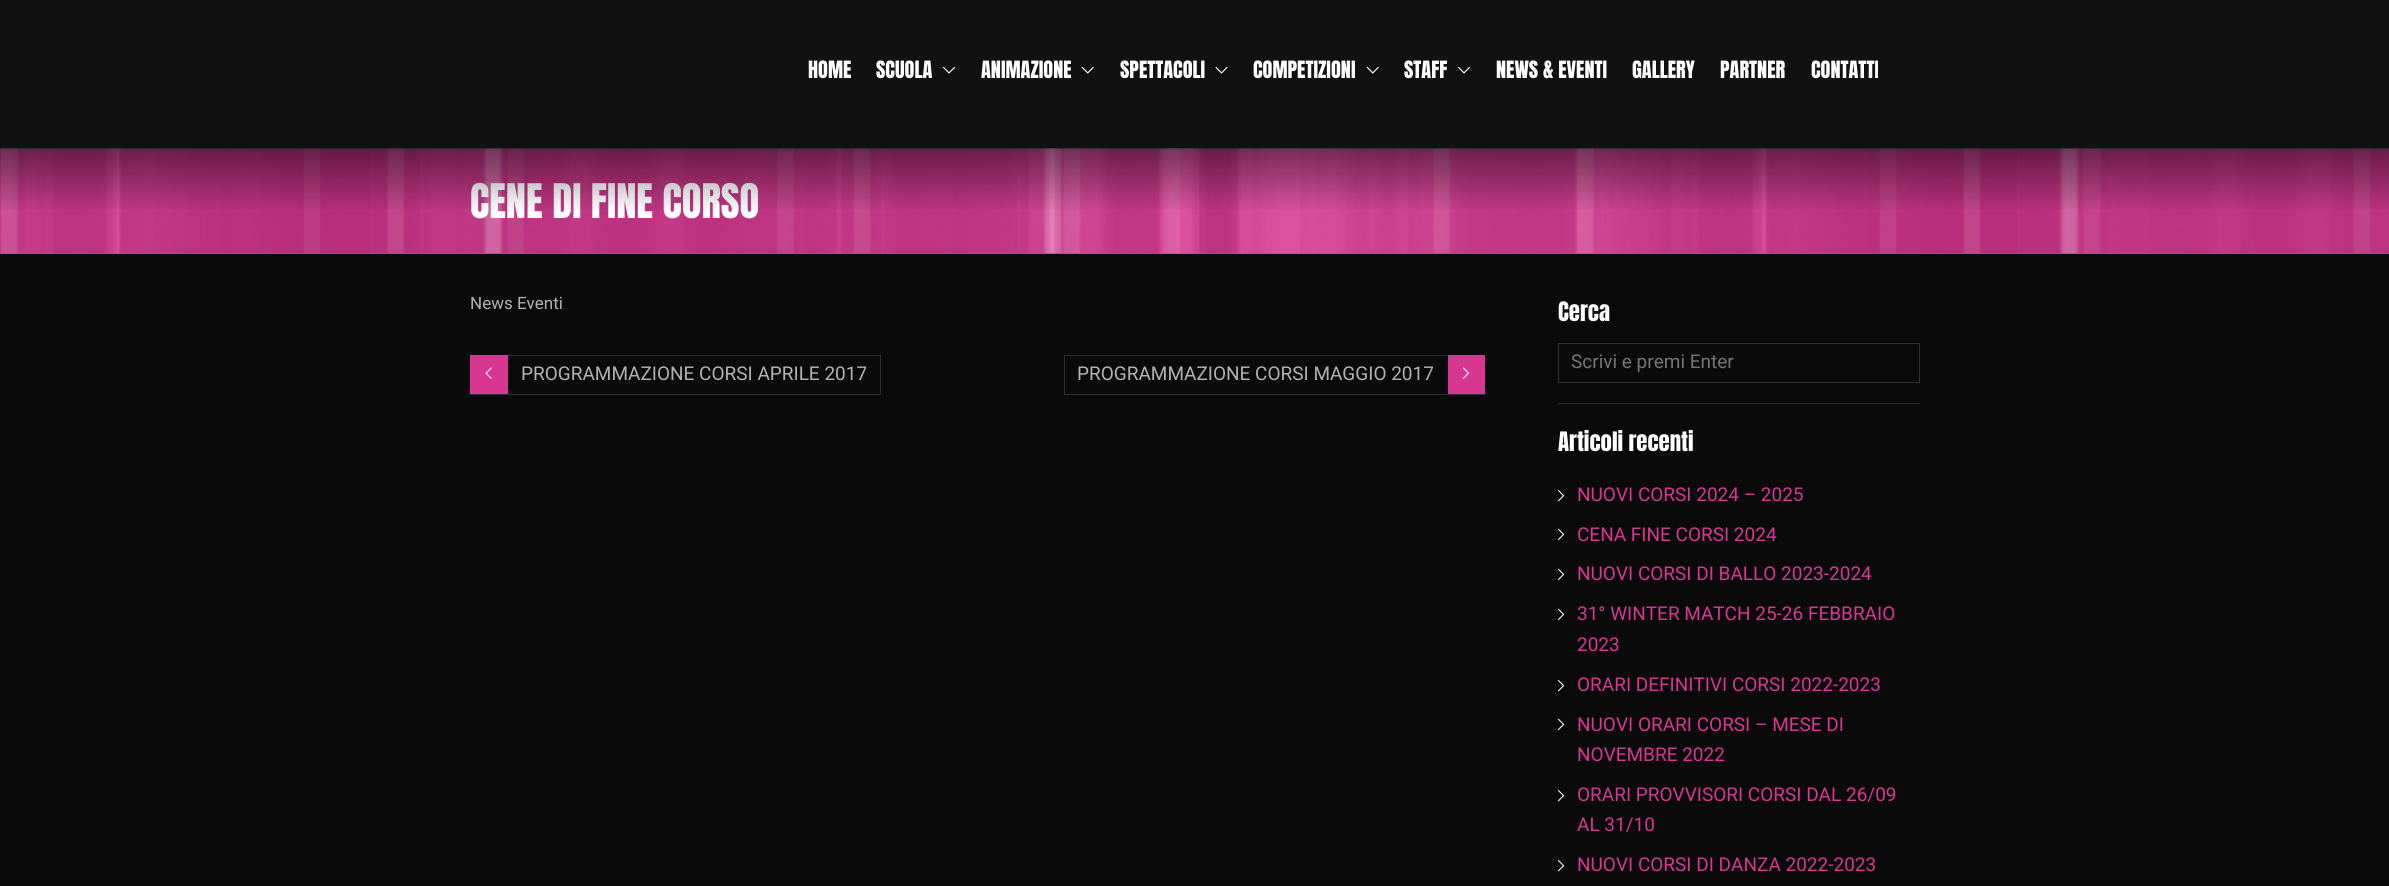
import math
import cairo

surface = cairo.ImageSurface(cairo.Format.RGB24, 2389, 886)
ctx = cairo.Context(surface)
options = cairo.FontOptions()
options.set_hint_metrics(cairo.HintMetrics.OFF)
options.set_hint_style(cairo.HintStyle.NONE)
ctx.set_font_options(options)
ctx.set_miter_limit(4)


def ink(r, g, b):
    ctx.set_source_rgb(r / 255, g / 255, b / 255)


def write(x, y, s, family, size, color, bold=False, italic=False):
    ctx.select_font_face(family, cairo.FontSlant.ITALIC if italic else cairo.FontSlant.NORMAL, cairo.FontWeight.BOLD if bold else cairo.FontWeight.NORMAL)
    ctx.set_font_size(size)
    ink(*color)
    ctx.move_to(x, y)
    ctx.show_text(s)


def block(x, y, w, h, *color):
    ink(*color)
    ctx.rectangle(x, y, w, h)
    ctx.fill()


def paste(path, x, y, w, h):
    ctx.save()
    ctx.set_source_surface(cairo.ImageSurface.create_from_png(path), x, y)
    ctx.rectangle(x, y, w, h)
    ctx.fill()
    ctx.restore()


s1 = dict(family="Anton", size=20.25, color=(255, 255, 255))
s2 = dict(family="Anton", size=40.5, color=(255, 255, 255))
s3 = dict(family="Roboto", size=17, color=(178, 178, 178))
s4 = dict(family="Roboto", size=19, color=(178, 178, 178))
s5 = dict(family="Anton", size=22.75, color=(255, 255, 255))
s6 = dict(family="Roboto", size=19, color=(117, 117, 117))
s7 = dict(family="Roboto", size=19, color=(215, 54, 145))

ink(10, 10, 10)
ctx.paint()
block(0, 0, 2389, 148, 17, 17, 17)
block(0, 148, 2389, 1, 41, 41, 41)
write(808, 78, "HOME", **s1)
write(876, 78, "SCUOLA", **s1)
paste("pic1.png", 942, 66, 14, 8)
write(981, 78, "ANIMAZIONE", **s1)
paste("pic2.png", 1081, 66, 13, 8)
write(1120, 78, "SPETTACOLI", **s1)
paste("pic3.png", 1215, 66, 13, 8)
write(1253, 78, "COMPETIZIONI", **s1)
paste("pic2.png", 1366, 66, 13, 8)
write(1404, 78, "STAFF", **s1)
paste("pic1.png", 1457, 66, 14, 8)
write(1496, 78, "NEWS & EVENTI", **s1)
write(1632, 78, "GALLERY", **s1)
write(1720, 78, "PARTNER", **s1)
write(1811, 78, "CONTATTI", **s1)
block(0, 149, 2389, 105, 215, 54, 145)
paste("pic4.png", 0, 148, 2389, 106)
paste("pic5.png", 1, 148, 2369, 106)
write(470, 218, "CENE DI FINE CORSO", **s2)
gradient = cairo.LinearGradient(1195, 149, 1195, 213)
gradient.add_color_stop_rgba(0, 0, 0, 0, 0.45)
gradient.add_color_stop_rgba(1, 0, 0, 0, 0)
ctx.set_source(gradient)
ctx.rectangle(0, 149, 2389, 61)
ctx.fill()
write(470, 309, "News Eventi", **s3)
ctx.rectangle(470.5, 355.5, 410, 39)
ink(47, 47, 47)
ctx.set_line_width(1)
ctx.stroke()
block(470, 355, 38, 39, 215, 54, 145)
paste("pic6.png", 485, 367, 7, 12)
write(521, 380, "PROGRAMMAZIONE CORSI APRILE 2017", **s4)
ctx.rectangle(1064.5, 355.5, 420, 39)
ink(47, 47, 47)
ctx.stroke()
write(1077, 380, "PROGRAMMAZIONE CORSI MAGGIO 2017", **s4)
block(1448, 355, 37, 39, 215, 54, 145)
paste("pic7.png", 1462, 367, 8, 12)
block(1558, 403, 362, 1, 47, 47, 47)
write(1558, 321, "Cerca", **s5)
ctx.rectangle(1558.5, 343.5, 361, 39)
ink(47, 47, 47)
ctx.stroke()
write(1571, 368, "Scrivi e premi Enter", **s6)
write(1558, 451, "Articoli recenti", **s5)
paste("pic8.png", 1557, 490, 8, 12)
write(1577, 501, "NUOVI CORSI 2024 – 2025", **s7)
paste("pic9.png", 1557, 528, 8, 13)
write(1577, 541, "CENA FINE CORSI 2024", **s7)
paste("pic9.png", 1557, 568, 8, 13)
write(1577, 580, "NUOVI CORSI DI BALLO 2023-2024", **s7)
paste("pic9.png", 1557, 608, 8, 13)
write(1577, 620, "31° WINTER MATCH 25-26 FEBBRAIO", **s7)
write(1577, 651, "2023", **s7)
paste("pic8.png", 1557, 680, 8, 12)
write(1577, 691, "ORARI DEFINITIVI CORSI 2022-2023", **s7)
paste("pic9.png", 1557, 718, 8, 13)
write(1577, 731, "NUOVI ORARI CORSI – MESE DI", **s7)
write(1577, 761, "NOVEMBRE 2022", **s7)
paste("pic8.png", 1557, 790, 8, 12)
write(1577, 801, "ORARI PROVVISORI CORSI DAL 26/09", **s7)
write(1577, 831, "AL 31/10", **s7)
paste("pic8.png", 1557, 860, 8, 12)
write(1577, 871, "NUOVI CORSI DI DANZA 2022-2023", **s7)
surface.write_to_png("screenshot.png")
